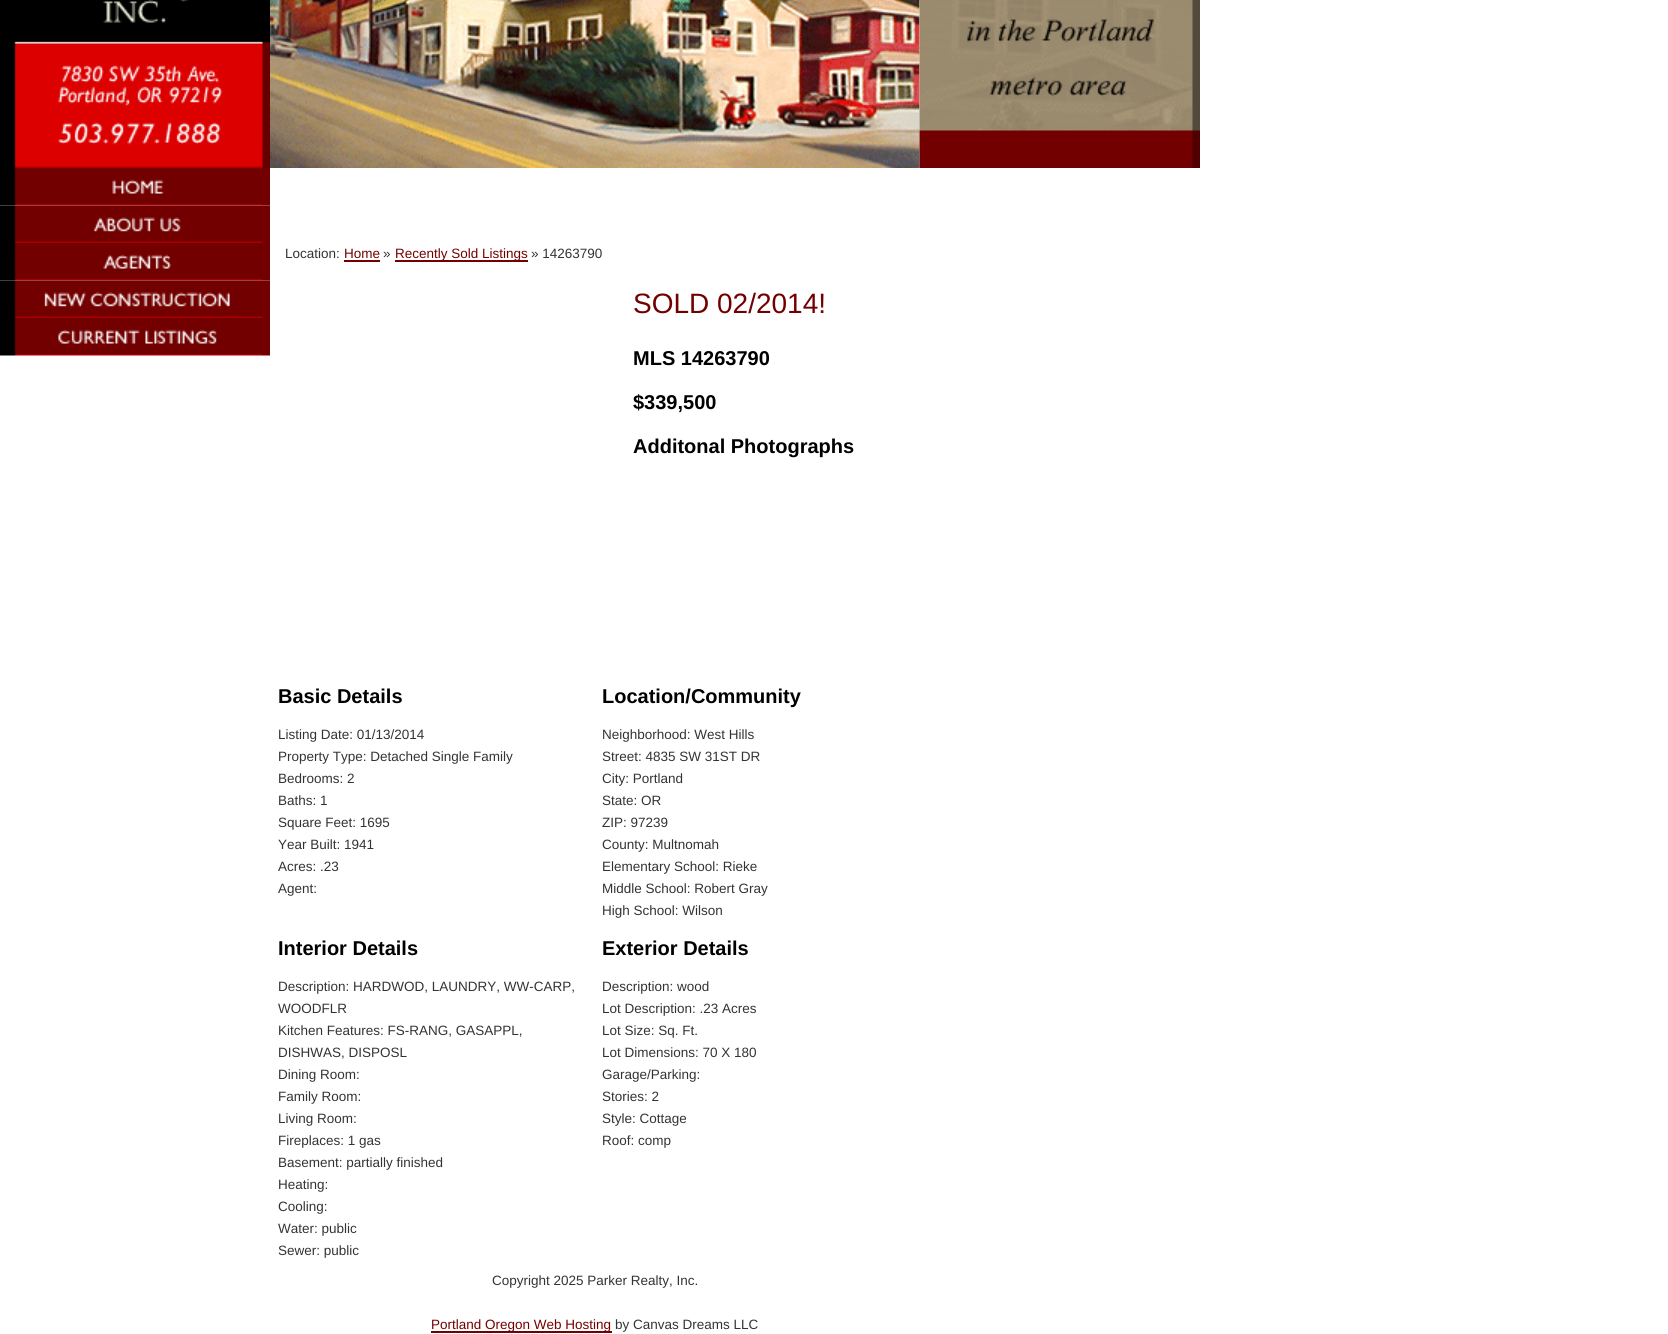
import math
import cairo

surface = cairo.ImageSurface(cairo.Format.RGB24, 1668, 1334)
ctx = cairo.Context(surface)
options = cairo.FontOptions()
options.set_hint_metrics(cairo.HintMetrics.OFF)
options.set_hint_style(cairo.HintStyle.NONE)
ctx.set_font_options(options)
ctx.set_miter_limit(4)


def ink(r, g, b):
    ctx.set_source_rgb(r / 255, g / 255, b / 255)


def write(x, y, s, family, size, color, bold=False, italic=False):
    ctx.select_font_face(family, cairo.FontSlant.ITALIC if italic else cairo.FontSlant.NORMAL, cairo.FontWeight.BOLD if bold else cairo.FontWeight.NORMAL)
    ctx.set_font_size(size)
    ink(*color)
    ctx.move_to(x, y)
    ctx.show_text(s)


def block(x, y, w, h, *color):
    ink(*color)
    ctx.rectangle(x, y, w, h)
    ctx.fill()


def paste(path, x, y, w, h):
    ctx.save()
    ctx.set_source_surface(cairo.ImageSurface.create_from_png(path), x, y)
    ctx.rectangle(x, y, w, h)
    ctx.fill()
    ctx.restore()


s1 = dict(family="Liberation Sans", size=13.5, color=(51, 51, 51))
s2 = dict(family="Liberation Sans", size=13.5, color=(115, 0, 0))
s3 = dict(family="Liberation Sans", size=28, color=(115, 0, 0))
s4 = dict(family="Liberation Sans", size=20, color=(0, 0, 0), bold=True)

ink(255, 255, 255)
ctx.paint()
paste("pic1.png", 0, 0, 270, 168)
paste("pic2.png", 270, 0, 650, 168)
paste("pic3.png", 919, 0, 281, 168)
paste("pic4.png", 0, 168, 270, 38)
paste("pic5.png", 0, 205, 270, 38)
paste("pic6.png", 0, 243, 270, 38)
paste("pic7.png", 0, 280, 270, 38)
paste("pic8.png", 0, 318, 270, 38)
write(285, 258, "Location:", **s1)
write(344, 258, "Home", **s2)
block(344, 260, 36, 2, 115, 0, 0)
write(383, 258, "»", **s1)
block(395, 260, 133, 2, 115, 0, 0)
write(395, 258, "Recently Sold Listings", **s2)
write(531, 258, "» 14263790", **s1)
write(633, 313, "SOLD 02/2014!", **s3)
write(633, 365, "MLS 14263790", **s4)
write(633, 409, "$339,500", **s4)
write(633, 453, "Additonal Photographs", **s4)
write(278, 703, "Basic Details", **s4)
write(602, 703, "Location/Community", **s4)
write(278, 739, "Listing Date: 01/13/2014", **s1)
write(278, 761, "Property Type: Detached Single Family", **s1)
write(278, 783, "Bedrooms: 2", **s1)
write(278, 805, "Baths: 1", **s1)
write(278, 827, "Square Feet: 1695", **s1)
write(278, 849, "Year Built: 1941", **s1)
write(278, 871, "Acres: .23", **s1)
write(278, 893, "Agent:", **s1)
write(602, 739, "Neighborhood: West Hills", **s1)
write(602, 761, "Street: 4835 SW 31ST DR", **s1)
write(602, 783, "City: Portland", **s1)
write(602, 805, "State: OR", **s1)
write(602, 827, "ZIP: 97239", **s1)
write(602, 849, "County: Multnomah", **s1)
write(602, 871, "Elementary School: Rieke", **s1)
write(602, 893, "Middle School: Robert Gray", **s1)
write(602, 915, "High School: Wilson", **s1)
write(278, 955, "Interior Details", **s4)
write(602, 955, "Exterior Details", **s4)
write(278, 991, "Description: HARDWOD, LAUNDRY, WW-CARP,", **s1)
write(278, 1013, "WOODFLR", **s1)
write(278, 1035, "Kitchen Features: FS-RANG, GASAPPL,", **s1)
write(278, 1057, "DISHWAS, DISPOSL", **s1)
write(278, 1079, "Dining Room:", **s1)
write(278, 1101, "Family Room:", **s1)
write(278, 1123, "Living Room:", **s1)
write(278, 1145, "Fireplaces: 1 gas", **s1)
write(278, 1167, "Basement: partially finished", **s1)
write(278, 1189, "Heating:", **s1)
write(278, 1211, "Cooling:", **s1)
write(278, 1233, "Water: public", **s1)
write(278, 1255, "Sewer: public", **s1)
write(602, 991, "Description: wood", **s1)
write(602, 1013, "Lot Description: .23 Acres", **s1)
write(602, 1035, "Lot Size: Sq. Ft.", **s1)
write(602, 1057, "Lot Dimensions: 70 X 180", **s1)
write(602, 1079, "Garage/Parking:", **s1)
write(602, 1101, "Stories: 2", **s1)
write(602, 1123, "Style: Cottage", **s1)
write(602, 1145, "Roof: comp", **s1)
write(492, 1285, "Copyright 2025 Parker Realty, Inc.", **s1)
block(431, 1331, 181, 2, 115, 0, 0)
write(431, 1329, "Portland Oregon Web Hosting", **s2)
write(615, 1329, "by Canvas Dreams LLC", **s1)
surface.write_to_png("screenshot.png")
